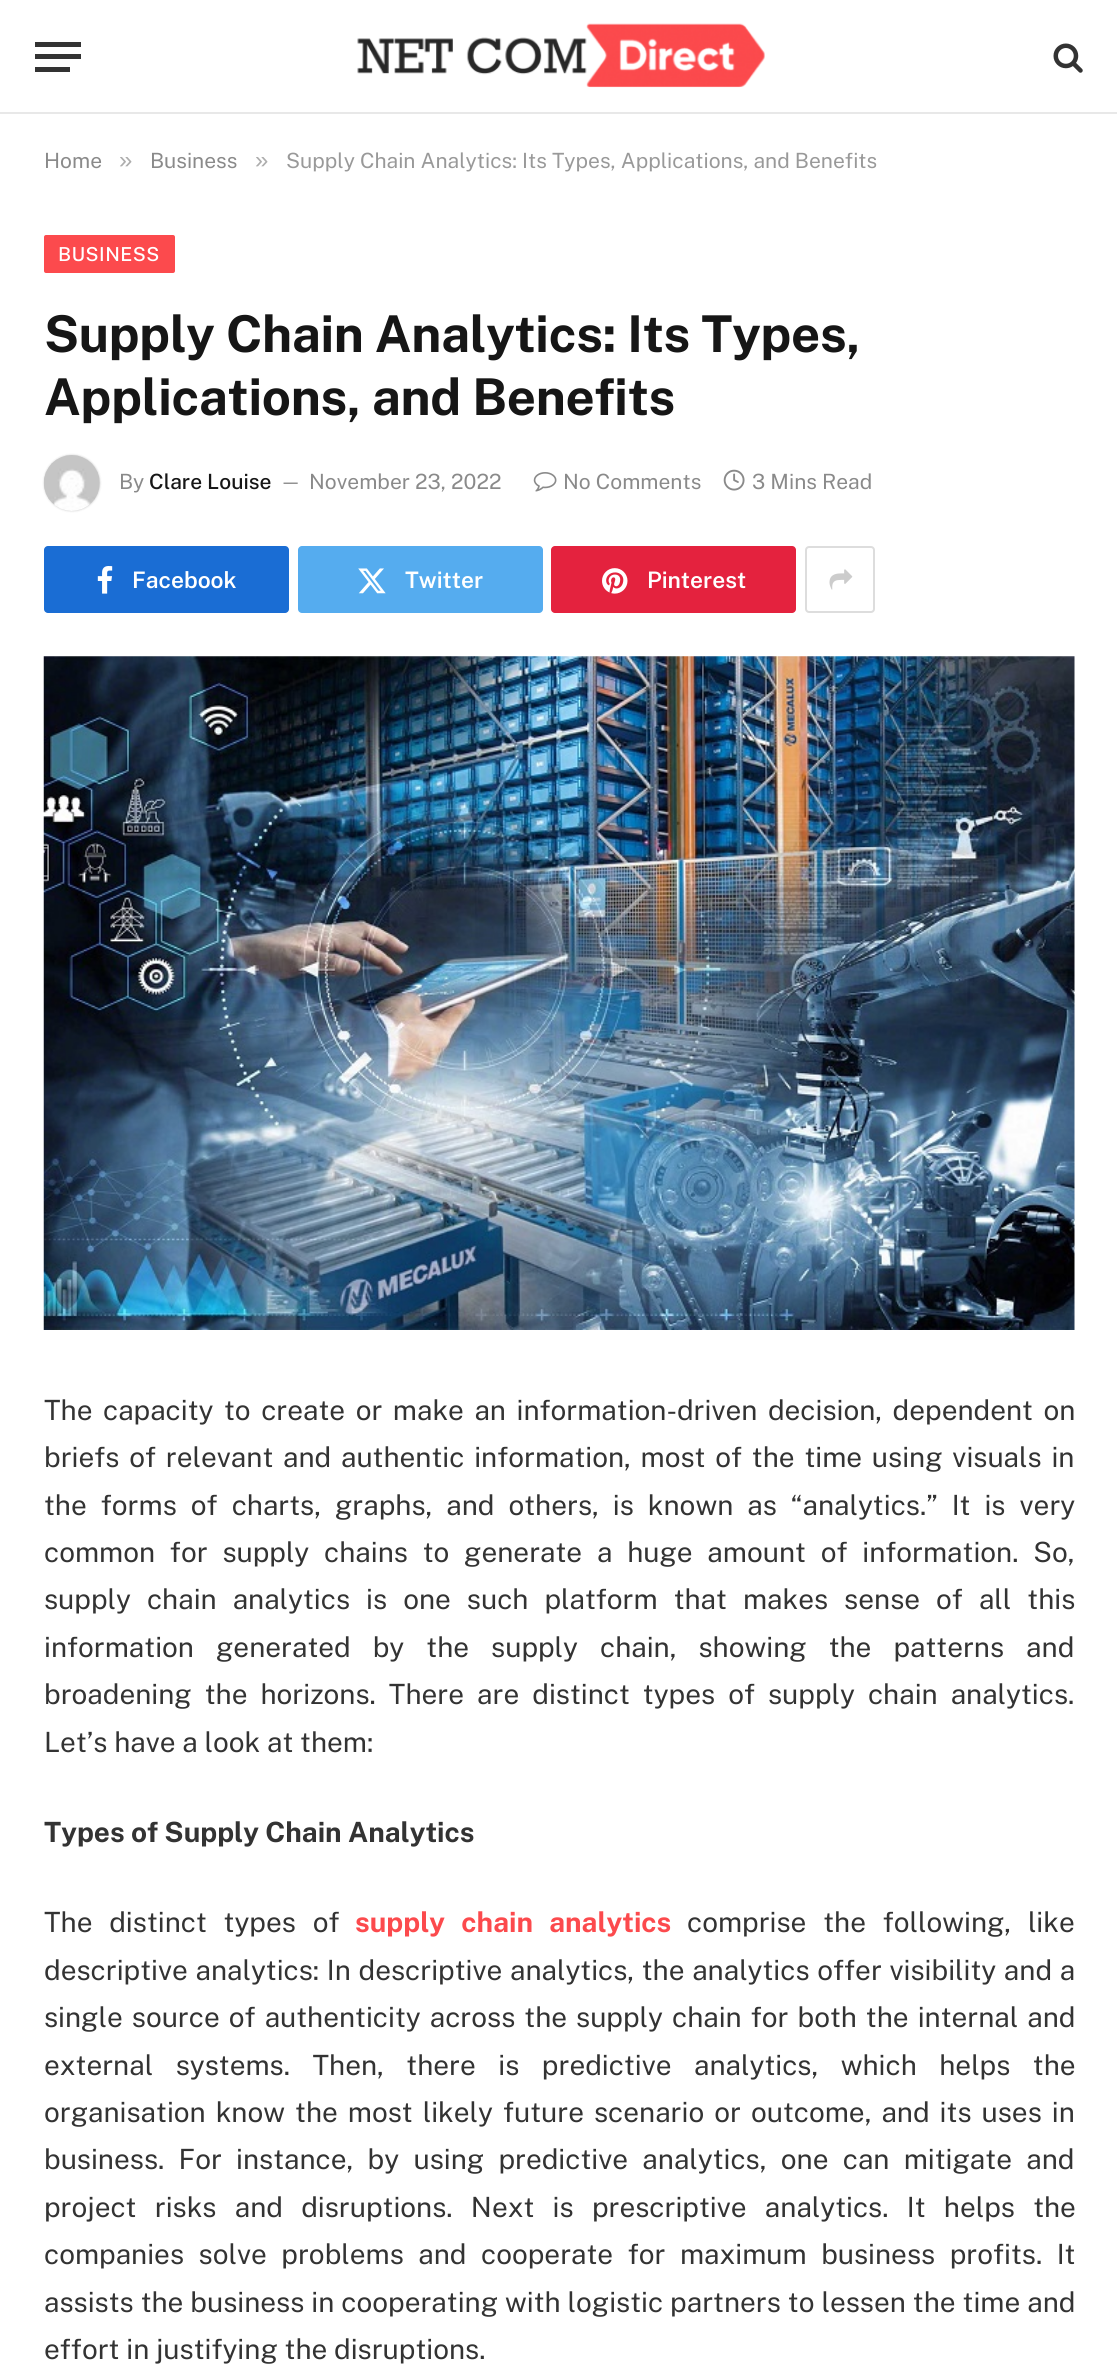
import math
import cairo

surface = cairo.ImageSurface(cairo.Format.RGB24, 1117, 2377)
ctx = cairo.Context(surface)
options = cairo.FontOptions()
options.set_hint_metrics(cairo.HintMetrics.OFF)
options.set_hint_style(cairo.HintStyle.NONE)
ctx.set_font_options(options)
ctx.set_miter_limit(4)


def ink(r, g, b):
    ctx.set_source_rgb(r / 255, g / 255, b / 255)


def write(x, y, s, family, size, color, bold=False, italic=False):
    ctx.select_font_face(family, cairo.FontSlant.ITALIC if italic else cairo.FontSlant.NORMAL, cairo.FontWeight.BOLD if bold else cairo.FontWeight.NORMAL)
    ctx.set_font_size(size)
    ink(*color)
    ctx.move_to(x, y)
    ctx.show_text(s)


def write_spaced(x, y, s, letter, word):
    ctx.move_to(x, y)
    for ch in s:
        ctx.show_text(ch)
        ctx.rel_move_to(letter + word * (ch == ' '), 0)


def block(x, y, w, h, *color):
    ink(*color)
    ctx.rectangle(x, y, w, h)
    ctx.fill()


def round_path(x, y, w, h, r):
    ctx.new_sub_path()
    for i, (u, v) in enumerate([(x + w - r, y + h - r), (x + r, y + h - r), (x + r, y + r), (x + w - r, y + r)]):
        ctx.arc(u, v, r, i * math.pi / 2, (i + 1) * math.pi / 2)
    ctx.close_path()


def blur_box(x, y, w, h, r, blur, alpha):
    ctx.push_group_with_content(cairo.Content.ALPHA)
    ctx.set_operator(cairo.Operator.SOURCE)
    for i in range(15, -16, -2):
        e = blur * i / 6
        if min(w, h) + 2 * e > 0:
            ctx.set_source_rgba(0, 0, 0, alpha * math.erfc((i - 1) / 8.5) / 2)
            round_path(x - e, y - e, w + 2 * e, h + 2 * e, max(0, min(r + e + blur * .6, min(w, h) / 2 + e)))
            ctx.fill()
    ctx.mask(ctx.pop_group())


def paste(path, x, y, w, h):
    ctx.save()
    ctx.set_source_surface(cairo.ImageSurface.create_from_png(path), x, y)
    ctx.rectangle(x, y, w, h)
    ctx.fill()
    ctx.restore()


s1 = dict(family="Public Sans", size=21, color=(138, 138, 138))
s2 = dict(family="Liberation Sans", size=24, color=(173, 173, 173))
s3 = dict(family="Public Sans", size=21, color=(153, 153, 153))
s4 = dict(family="Public Sans Medium", size=21, color=(22, 22, 22))
s5 = dict(family="Public Sans", size=19, color=(138, 138, 138))
s6 = dict(family="Public Sans SemiBold", size=22.75, color=(255, 255, 255))
s7 = dict(family="Public Sans", size=27.9, color=(51, 51, 51))
s8 = dict(family="Public Sans", size=27.9, color=(51, 51, 51), bold=True)

ink(255, 255, 255)
ctx.paint()
block(0, 112, 1117, 2, 232, 232, 232)
block(35, 67, 35, 5, 51, 51, 51)
block(35, 42, 46, 5, 51, 51, 51)
block(35, 54, 46, 5, 51, 51, 51)
paste("pic1.png", 357, 23, 408, 65)
paste("pic2.png", 1053, 43, 30, 30)
write(44, 168, "Home", **s1)
write(119, 168, "»", **s2)
write(150, 168, "Business", **s1)
write(255, 168, "»", **s2)
write(286, 168, "Supply Chain Analytics: Its Types, Applications, and Benefits", **s3)
ink(252, 74, 77)
round_path(44, 235, 131, 38, 2)
ctx.fill()
ctx.select_font_face("Public Sans Medium")
ctx.set_font_size(19.25)
ink(255, 255, 255)
write_spaced(58, 261, "BUSINESS", 0.5, 0)
ctx.select_font_face("Public Sans", cairo.FontSlant.NORMAL, cairo.FontWeight.BOLD)
ctx.set_font_size(50.75)
ink(22, 22, 22)
write_spaced(44, 352, "Supply Chain Analytics: Its Types,", -0.25, 0)
write_spaced(44, 415, "Applications, and Benefits", -0.25, 0)
ink(0, 0, 0)
blur_box(44, 455, 56, 56, 28, 1, 0.2)
paste("pic3.png", 44, 455, 56, 56)
write(119, 489, "By", **s1)
write(149, 489, "Clare Louise", **s4)
write(280, 488, "—", **s5)
write(309, 489, "November 23, 2022", **s1)
paste("pic4.png", 533, 472, 24, 20)
write(563, 489, "No Comments", **s1)
paste("pic5.png", 723, 469, 22, 22)
write(752, 489, "3 Mins Read", **s1)
ink(26, 109, 212)
round_path(44, 546, 245, 67, 4)
ctx.fill()
paste("pic6.png", 97, 566, 16, 28)
write(132, 588, "Facebook", **s6)
ink(85, 172, 239)
round_path(298, 546, 245, 67, 4)
ctx.fill()
paste("pic7.png", 358, 568, 28, 26)
write(405, 588, "Twitter", **s6)
ink(228, 34, 62)
round_path(551, 546, 245, 67, 4)
ctx.fill()
paste("pic8.png", 602, 568, 26, 26)
write(647, 588, "Pinterest", **s6)
round_path(806, 547, 68, 65, 3)
ink(221, 221, 221)
ctx.stroke()
paste("pic9.png", 829, 569, 24, 21)
paste("pic10.png", 43, 656, 1032, 674)
ctx.select_font_face("Public Sans")
ctx.set_font_size(27.9)
ink(51, 51, 51)
write_spaced(44, 1420, "The capacity to create or make an information-driven decision, dependent on", 0, 3.75)
write_spaced(44, 1467, "briefs of relevant and authentic information, most of the time using visuals in", 0, 3)
write_spaced(44, 1515, "the forms of charts, graphs, and others, is known as “analytics.” It is very", 0, 7.25)
write_spaced(44, 1562, "common for supply chains to generate a huge amount of information. So,", 0, 8)
write_spaced(44, 1609, "supply chain analytics is one such platform that makes sense of all this", 0, 9.25)
write_spaced(44, 1657, "information generated by the supply chain, showing the patterns and", 0, 15.25)
write_spaced(44, 1704, "broadening the horizons. There are distinct types of supply chain analytics.", 0, 6.25)
write(44, 1752, "Let’s have a look at them:", **s7)
write(44, 1842, "Types of Supply Chain Analytics", **s8)
ctx.select_font_face("Public Sans")
write_spaced(44, 1932, "The distinct types of", 0, 10)
ctx.select_font_face("Public Sans", cairo.FontSlant.NORMAL, cairo.FontWeight.BOLD)
ink(252, 74, 77)
write_spaced(355, 1932, "supply chain analytics", 0, 10)
ctx.select_font_face("Public Sans")
ink(51, 51, 51)
write_spaced(687, 1932, "comprise the following, like", 0, 10)
write_spaced(44, 1980, "descriptive analytics: In descriptive analytics, the analytics offer visibility and a", 0, 0.9)
write_spaced(44, 2027, "single source of authenticity across the supply chain for both the internal and", 0, 2.25)
write_spaced(44, 2075, "external systems. Then, there is predictive analytics, which helps the", 0, 15.75)
write_spaced(44, 2122, "organisation know the most likely future scenario or outcome, and its uses in", 0, 3.25)
write_spaced(44, 2169, "business. For instance, by using predictive analytics, one can mitigate and", 0, 7.5)
write_spaced(44, 2217, "project risks and disruptions. Next is prescriptive analytics. It helps the", 0, 11.5)
write_spaced(44, 2264, "companies solve problems and cooperate for maximum business profits. It", 0, 7.75)
write_spaced(44, 2312, "assists the business in cooperating with logistic partners to lessen the time and", 0, 0.2)
write(44, 2359, "effort in justifying the disruptions.", **s7)
surface.write_to_png("screenshot.png")
